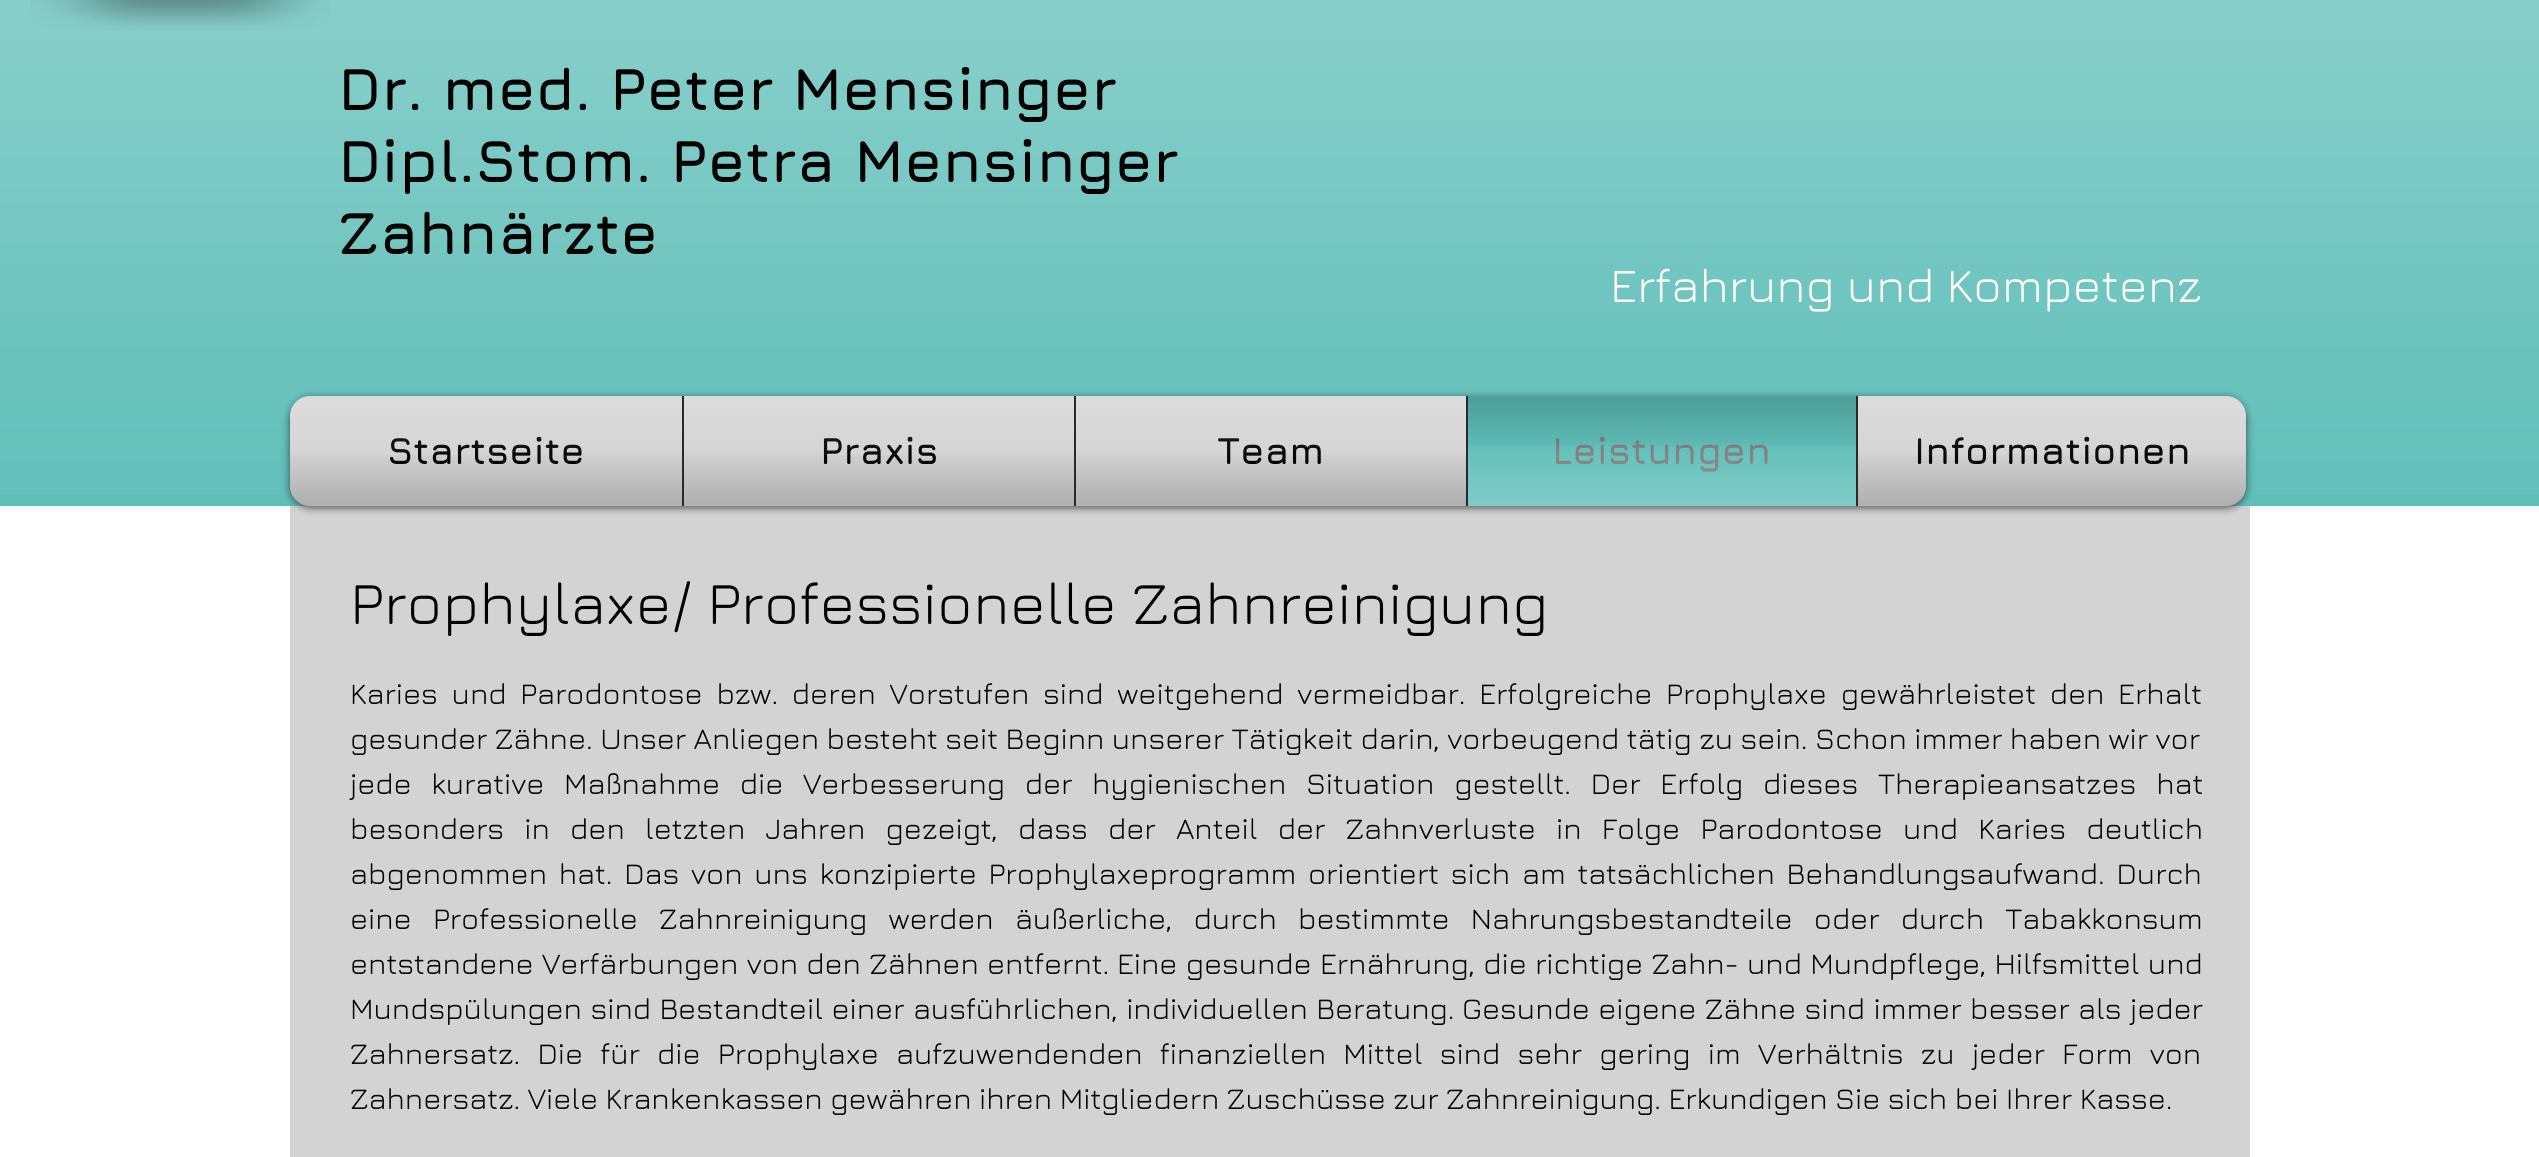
import math
import cairo

surface = cairo.ImageSurface(cairo.Format.RGB24, 2539, 1157)
ctx = cairo.Context(surface)
options = cairo.FontOptions()
options.set_hint_metrics(cairo.HintMetrics.OFF)
options.set_hint_style(cairo.HintStyle.NONE)
ctx.set_font_options(options)
ctx.set_miter_limit(4)


def ink(r, g, b):
    ctx.set_source_rgb(r / 255, g / 255, b / 255)


def write(x, y, s, family, size, color, bold=False, italic=False):
    ctx.select_font_face(family, cairo.FontSlant.ITALIC if italic else cairo.FontSlant.NORMAL, cairo.FontWeight.BOLD if bold else cairo.FontWeight.NORMAL)
    ctx.set_font_size(size)
    ink(*color)
    ctx.move_to(x, y)
    ctx.show_text(s)


def write_spaced(x, y, s, letter, word):
    ctx.move_to(x, y)
    for ch in s:
        ctx.show_text(ch)
        ctx.rel_move_to(letter + word * (ch == ' '), 0)


def block(x, y, w, h, *color):
    ink(*color)
    ctx.rectangle(x, y, w, h)
    ctx.fill()


def round_path(x, y, w, h, r):
    ctx.new_sub_path()
    for i, (u, v) in enumerate([(x + w - r, y + h - r), (x + r, y + h - r), (x + r, y + r), (x + w - r, y + r)]):
        ctx.arc(u, v, r, i * math.pi / 2, (i + 1) * math.pi / 2)
    ctx.close_path()


def blur_box(x, y, w, h, r, blur, alpha):
    ctx.push_group_with_content(cairo.Content.ALPHA)
    ctx.set_operator(cairo.Operator.SOURCE)
    for i in range(15, -16, -2):
        e = blur * i / 6
        if min(w, h) + 2 * e > 0:
            ctx.set_source_rgba(0, 0, 0, alpha * math.erfc((i - 1) / 8.5) / 2)
            round_path(x - e, y - e, w + 2 * e, h + 2 * e, max(0, min(r + e + blur * .6, min(w, h) / 2 + e)))
            ctx.fill()
    ctx.mask(ctx.pop_group())


def paste(path, x, y, w, h):
    ctx.save()
    ctx.set_source_surface(cairo.ImageSurface.create_from_png(path), x, y)
    ctx.rectangle(x, y, w, h)
    ctx.fill()
    ctx.restore()


s1 = dict(family="Jura", size=60, color=(0, 0, 0), bold=True)
s2 = dict(family="Jura", size=48, color=(255, 255, 255))
s3 = dict(family="Jura", size=38, color=(0, 0, 0), bold=True)
s4 = dict(family="Jura", size=38, color=(125, 124, 124), bold=True)
s5 = dict(family="Jura", size=60, color=(0, 0, 0))
s6 = dict(family="Jura", size=30, color=(0, 0, 0))

ink(255, 255, 255)
ctx.paint()
block(0, 0, 2539, 506, 95, 190, 184)
paste("pic1.png", 0, 0, 2539, 495)
paste("pic2.png", 31, 0, 300, 31)
write(338, 110, "Dr. med. Peter Mensinger", **s1)
write(338, 182, "Dipl.Stom. Petra Mensinger", **s1)
write(338, 254, "Zahnärzte", **s1)
write(1610, 302, "Erfahrung und Kompetenz", **s2)
block(290, 506, 1960, 651, 212, 211, 211)
ink(0, 0, 0)
blur_box(290, 398, 1956, 110, 20, 4, 0.6)
paste("pic3.png", 290, 396, 1956, 20)
paste("pic4.png", 290, 486, 1956, 20)
ink(212, 211, 211)
ctx.new_path()
ctx.move_to(310, 396)
ctx.line_to(682, 396)
ctx.line_to(682, 506)
ctx.line_to(310, 506)
ctx.curve_to(299, 506, 290, 497, 290, 486)
ctx.line_to(290, 416)
ctx.curve_to(290, 405, 299, 396, 310, 396)
ctx.close_path()
ctx.fill()
write(387, 464, "Startseite", **s3)
paste("pic5.png", 290, 396, 392, 65)
paste("pic6.png", 290, 455, 392, 51)
block(684, 396, 390, 110, 212, 211, 211)
block(682, 396, 2, 110, 42, 41, 41)
write(820, 464, "Praxis", **s3)
paste("pic7.png", 684, 396, 390, 65)
paste("pic8.png", 684, 455, 390, 51)
block(1076, 396, 390, 110, 212, 211, 211)
block(1074, 396, 2, 110, 42, 41, 41)
write(1217, 464, "Team", **s3)
paste("pic9.png", 1076, 396, 390, 65)
paste("pic10.png", 1076, 455, 390, 51)
block(1468, 396, 388, 110, 95, 190, 184)
block(1466, 396, 2, 110, 42, 41, 41)
write(1552, 464, "Leistungen", **s4)
paste("pic11.png", 1468, 396, 388, 51)
paste("pic12.png", 1468, 443, 388, 63)
ink(212, 211, 211)
ctx.new_path()
ctx.move_to(1856, 396)
ctx.line_to(2226, 396)
ctx.curve_to(2237, 396, 2246, 405, 2246, 416)
ctx.line_to(2246, 486)
ctx.curve_to(2246, 497, 2237, 506, 2226, 506)
ctx.line_to(1856, 506)
ctx.close_path()
ctx.fill()
block(1856, 396, 2, 110, 42, 41, 41)
write(1914, 464, "Informationen", **s3)
paste("pic13.png", 1858, 396, 388, 65)
paste("pic14.png", 1858, 455, 388, 51)
write(350, 624, "Prophylaxe/ Professionelle Zahnreinigung", **s5)
ctx.set_font_size(30)
write_spaced(350, 704, "Karies und Parodontose bzw. deren Vorstufen sind weitgehend vermeidbar. Erfolgreiche Prophylaxe gewährleistet den Erhalt", 0, 6.25)
write(350, 749, "gesunder Zähne. Unser Anliegen besteht seit Beginn unserer Tätigkeit darin, vorbeugend tätig zu sein. Schon immer haben wir vor", **s6)
write_spaced(350, 794, "jede kurative Maßnahme die Verbesserung der hygienischen Situation gestellt. Der Erfolg dieses Therapieansatzes hat", 0, 12.25)
write_spaced(350, 839, "besonders in den letzten Jahren gezeigt, dass der Anteil der Zahnverluste in Folge Parodontose und Karies deutlich", 0, 12.75)
write_spaced(350, 884, "abgenommen hat. Das von uns konzipierte Prophylaxeprogramm orientiert sich am tatsächlichen Behandlungsaufwand. Durch", 0, 4.25)
write_spaced(350, 929, "eine Professionelle Zahnreinigung werden äußerliche, durch bestimmte Nahrungsbestandteile oder durch Tabakkonsum", 0, 13.75)
write_spaced(350, 974, "entstandene Verfärbungen von den Zähnen entfernt.", 0, 0.75)
write_spaced(1117, 974, "Eine gesunde Ernährung, die richtige Zahn- und Mundpflege, Hilfsmittel und", 0, 0.75)
write_spaced(350, 1019, "Mundspülungen sind Bestandteil einer ausführlichen, individuellen Beratung.", 0, 1)
write_spaced(1462, 1019, "Gesunde eigene Zähne sind immer besser als jeder", 0, 1)
write_spaced(350, 1064, "Zahnersatz. Die für die Prophylaxe aufzuwendenden finanziellen Mittel sind sehr gering im Verhältnis zu jeder Form von", 0, 9.75)
write(350, 1109, "Zahnersatz. Viele Krankenkassen gewähren ihren Mitgliedern Zuschüsse zur Zahnreinigung. Erkundigen Sie sich bei Ihrer Kasse.", **s6)
surface.write_to_png("screenshot.png")
